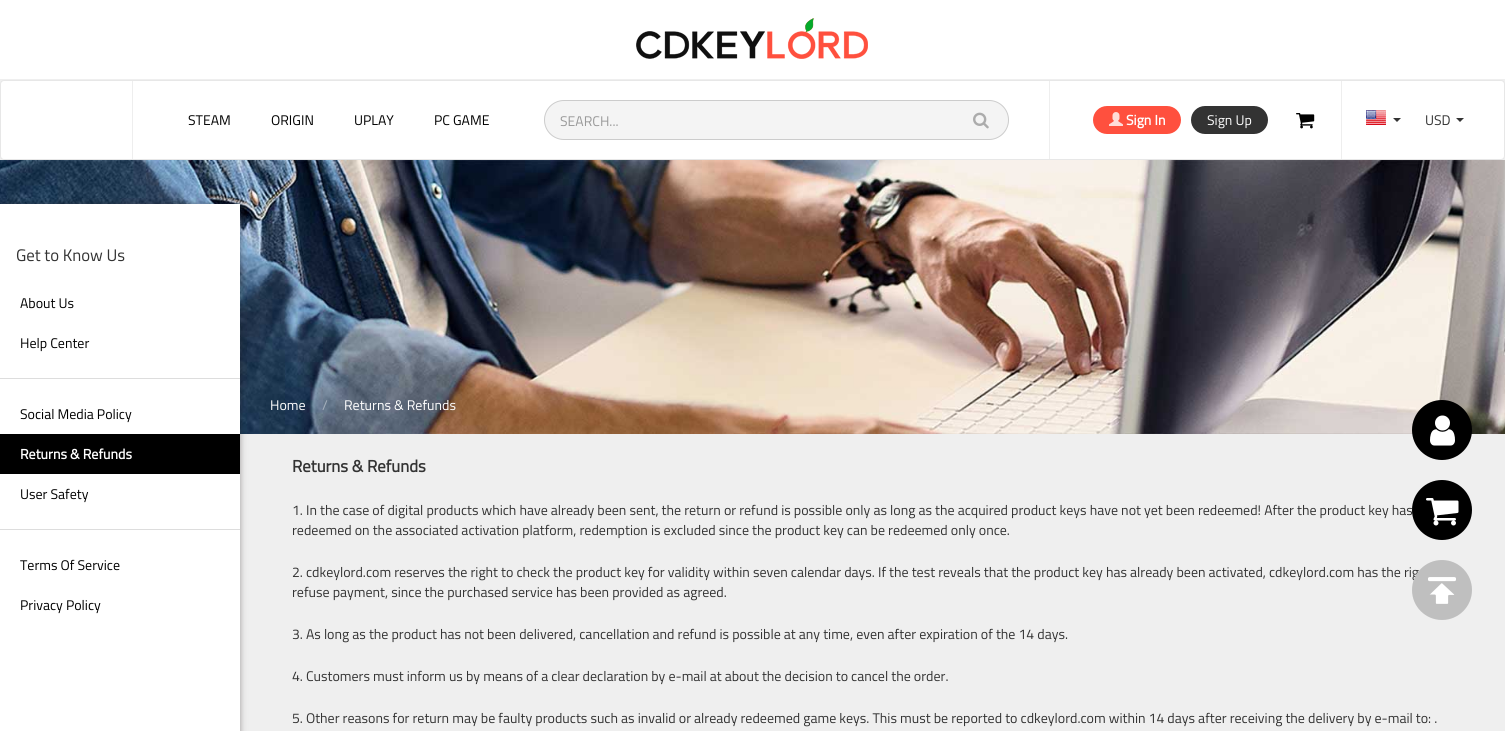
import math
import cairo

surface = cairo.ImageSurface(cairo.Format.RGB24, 1505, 731)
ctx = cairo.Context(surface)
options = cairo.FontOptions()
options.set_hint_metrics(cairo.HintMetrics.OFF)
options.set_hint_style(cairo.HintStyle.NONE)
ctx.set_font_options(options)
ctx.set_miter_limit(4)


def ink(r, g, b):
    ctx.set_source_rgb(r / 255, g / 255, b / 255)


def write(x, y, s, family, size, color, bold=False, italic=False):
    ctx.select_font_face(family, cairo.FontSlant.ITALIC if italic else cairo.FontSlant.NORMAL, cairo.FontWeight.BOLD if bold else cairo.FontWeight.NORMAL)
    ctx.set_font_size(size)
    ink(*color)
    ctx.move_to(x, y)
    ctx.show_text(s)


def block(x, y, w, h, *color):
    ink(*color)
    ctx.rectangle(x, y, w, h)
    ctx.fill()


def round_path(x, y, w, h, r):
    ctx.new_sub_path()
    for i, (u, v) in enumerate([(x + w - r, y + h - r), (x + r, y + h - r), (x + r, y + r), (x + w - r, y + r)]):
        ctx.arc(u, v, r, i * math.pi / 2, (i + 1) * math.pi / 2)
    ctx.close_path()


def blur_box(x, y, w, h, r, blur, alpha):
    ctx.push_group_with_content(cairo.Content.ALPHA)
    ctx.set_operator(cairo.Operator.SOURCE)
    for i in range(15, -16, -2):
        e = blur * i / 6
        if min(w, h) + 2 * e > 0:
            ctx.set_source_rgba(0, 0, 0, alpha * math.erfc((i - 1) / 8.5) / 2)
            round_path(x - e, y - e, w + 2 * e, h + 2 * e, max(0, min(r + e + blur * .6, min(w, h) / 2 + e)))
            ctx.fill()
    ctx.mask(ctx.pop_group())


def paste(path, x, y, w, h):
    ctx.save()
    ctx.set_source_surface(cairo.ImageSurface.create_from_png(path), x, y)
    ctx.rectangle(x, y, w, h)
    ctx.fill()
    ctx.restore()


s1 = dict(family="Titillium Web", size=14, color=(0, 0, 0))
s2 = dict(family="Titillium Web", size=14, color=(153, 153, 153))
s3 = dict(family="Titillium Web", size=14, color=(255, 255, 255), bold=True)
s4 = dict(family="Titillium Web", size=14, color=(255, 255, 255))
s5 = dict(family="Titillium Web", size=14, color=(51, 51, 51))
s6 = dict(family="Titillium Web", size=16.75, color=(51, 51, 51))
s7 = dict(family="Titillium Web", size=14, color=(164, 175, 187))
s8 = dict(family="Titillium Web", size=16.75, color=(51, 51, 51), bold=True)

ink(239, 239, 239)
ctx.paint()
block(0, 0, 1505, 79, 255, 255, 255)
paste("pic1.png", 636, 18, 232, 41)
round_path(0.5, 80.5, 1504, 79, 3.5)
ctx.fill_preserve()
ink(231, 231, 231)
ctx.set_line_width(1)
ctx.stroke()
block(132, 81, 1, 78, 238, 238, 238)
write(188, 125, "STEAM", **s1)
write(271, 125, "ORIGIN", **s1)
write(354, 125, "UPLAY", **s1)
write(434, 125, "PC GAME", **s1)
ink(244, 244, 244)
round_path(544.5, 100.5, 464, 39, 19.5)
ctx.fill_preserve()
ink(204, 204, 204)
ctx.stroke()
write(560, 126, "SEARCH...", **s2)
paste("pic2.png", 973, 112, 16, 17)
block(1341, 81, 1, 78, 238, 238, 238)
block(1049, 81, 1, 78, 238, 238, 238)
ink(255, 80, 62)
round_path(1093, 106, 88, 28, 14)
ctx.fill()
paste("pic3.png", 1109, 112, 14, 14)
write(1126, 125, "Sign In", **s3)
ink(51, 51, 51)
round_path(1191, 106, 77, 28, 14)
ctx.fill()
write(1207, 125, "Sign Up", **s4)
paste("pic4.png", 1296, 113, 19, 16)
paste("pic5.png", 1366, 110, 20, 15)
ink(51, 51, 51)
ctx.new_path()
ctx.move_to(1393, 118)
ctx.line_to(1401, 118)
ctx.line_to(1397, 122)
ctx.close_path()
ctx.fill()
write(1425, 125, "USD", **s5)
ctx.new_path()
ctx.move_to(1456, 118)
ctx.line_to(1464, 118)
ctx.line_to(1460, 122)
ctx.close_path()
ctx.fill()
paste("pic6.png", 0, 160, 1505, 274)
ink(34, 25, 25)
blur_box(0, 205, 240, 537, 0, 3.5, 0.4)
block(0, 204, 240, 527, 255, 255, 255)
write(16, 261, "Get to Know Us", **s6)
write(20, 308, "About Us", **s1)
write(20, 348, "Help Center", **s1)
block(0, 378, 240, 1, 221, 221, 221)
write(20, 419, "Social Media Policy", **s1)
block(0, 434, 240, 40, 0, 0, 0)
write(20, 459, "Returns & Refunds", **s3)
write(20, 499, "User Safety", **s1)
block(0, 529, 240, 1, 221, 221, 221)
write(20, 570, "Terms Of Service", **s1)
write(20, 610, "Privacy Policy", **s1)
write(270, 410, "Home", **s4)
write(322, 410, "/", **s7)
write(344, 410, "Returns & Refunds", **s4)
write(292, 472, "Returns & Refunds", **s8)
write(292, 515, "1. In the case of digital products which have already been sent, the return or refund is possible only as long as the acquired product keys have not yet been redeemed! After the product key has", **s5)
write(292, 535, "redeemed on the associated activation platform, redemption is excluded since the product key can be redeemed only once.", **s5)
write(292, 577, "2. cdkeylord.com reserves the right to check the product key for validity within seven calendar days. If the test reveals that the product key has already been activated, cdkeylord.com has the rig", **s5)
write(292, 597, "refuse payment, since the purchased service has been provided as agreed.", **s5)
write(292, 639, "3. As long as the product has not been delivered, cancellation and refund is possible at any time, even after expiration of the 14 days.", **s5)
write(292, 681, "4. Customers must inform us by means of a clear declaration by e-mail at about the decision to cancel the order.", **s5)
write(292, 723, "5. Other reasons for return may be faulty products such as invalid or already redeemed game keys. This must be reported to cdkeylord.com within 14 days after receiving the delivery by e-mail to: .", **s5)
ink(0, 0, 0)
ctx.new_path()
ctx.arc(1442, 430, 30, 0, 2 * math.pi)
ctx.fill()
paste("pic7.png", 1430, 415, 25, 31)
ctx.arc(1442, 510, 30, 0, 2 * math.pi)
ctx.fill()
paste("pic8.png", 1426, 498, 33, 28)
ink(191, 191, 191)
ctx.arc(1442, 590, 30, 0, 2 * math.pi)
ctx.fill()
paste("pic9.png", 1428, 577, 28, 27)
surface.write_to_png("screenshot.png")
